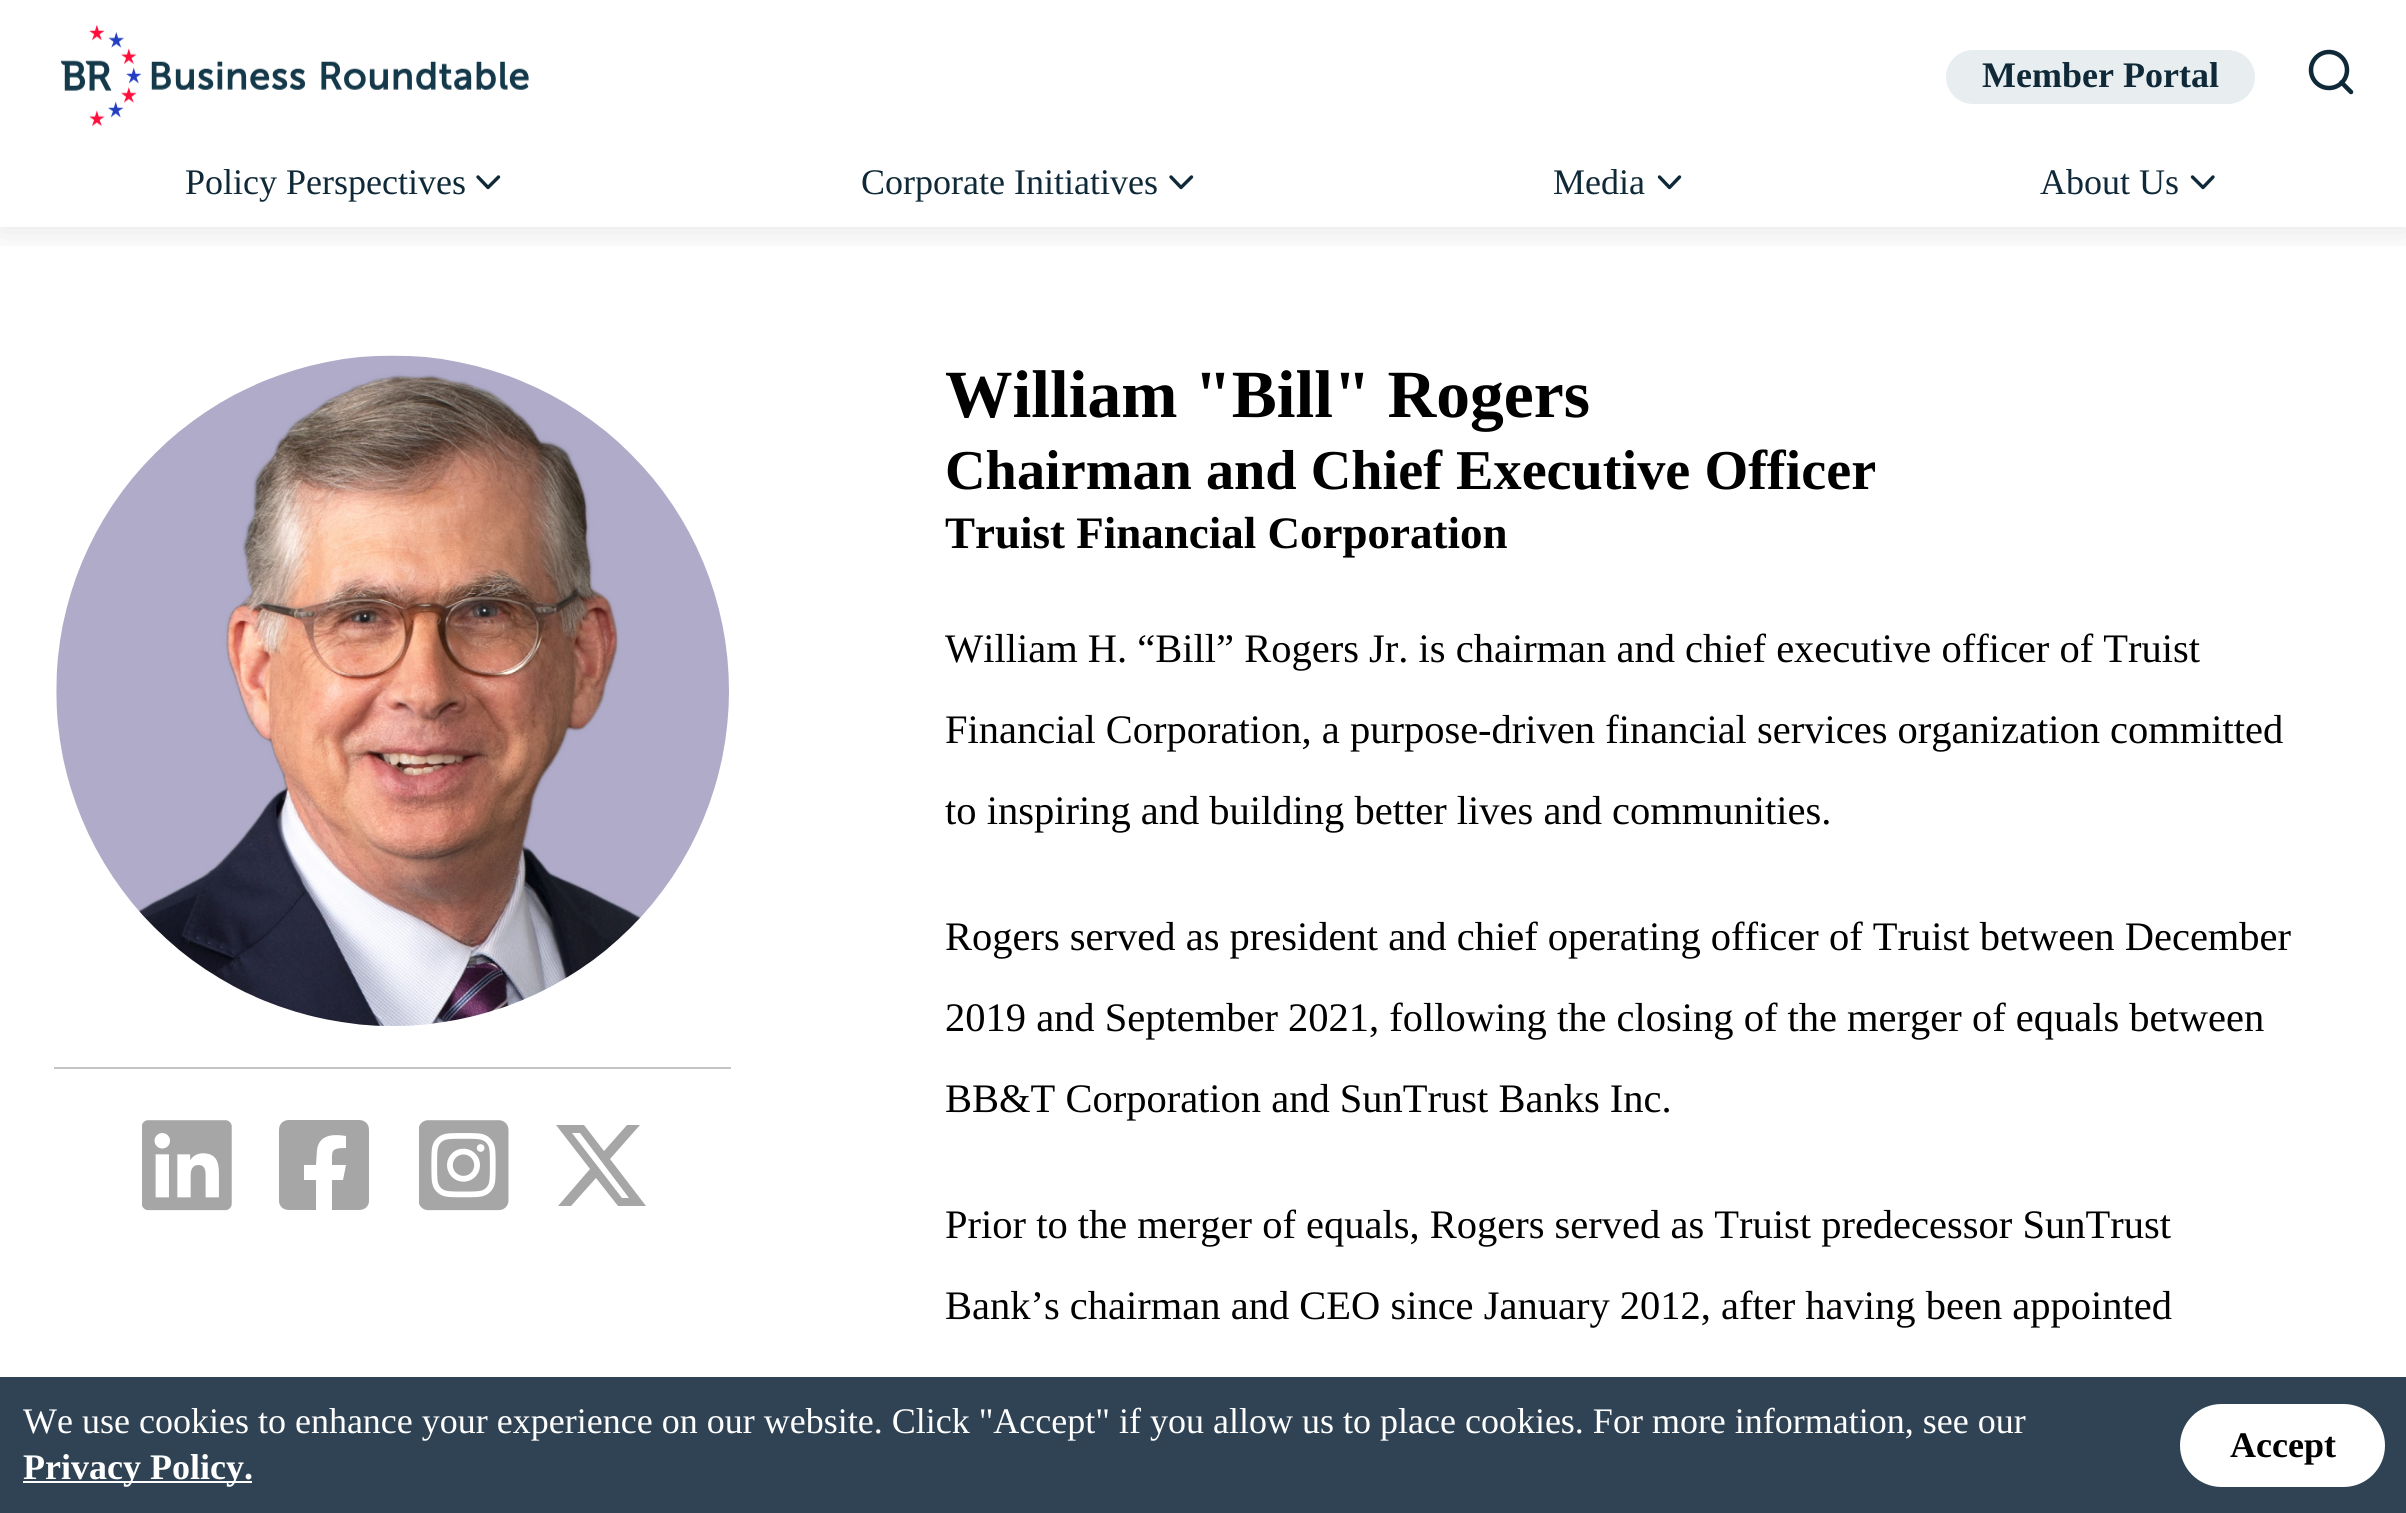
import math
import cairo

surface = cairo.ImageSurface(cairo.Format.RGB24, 2406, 1513)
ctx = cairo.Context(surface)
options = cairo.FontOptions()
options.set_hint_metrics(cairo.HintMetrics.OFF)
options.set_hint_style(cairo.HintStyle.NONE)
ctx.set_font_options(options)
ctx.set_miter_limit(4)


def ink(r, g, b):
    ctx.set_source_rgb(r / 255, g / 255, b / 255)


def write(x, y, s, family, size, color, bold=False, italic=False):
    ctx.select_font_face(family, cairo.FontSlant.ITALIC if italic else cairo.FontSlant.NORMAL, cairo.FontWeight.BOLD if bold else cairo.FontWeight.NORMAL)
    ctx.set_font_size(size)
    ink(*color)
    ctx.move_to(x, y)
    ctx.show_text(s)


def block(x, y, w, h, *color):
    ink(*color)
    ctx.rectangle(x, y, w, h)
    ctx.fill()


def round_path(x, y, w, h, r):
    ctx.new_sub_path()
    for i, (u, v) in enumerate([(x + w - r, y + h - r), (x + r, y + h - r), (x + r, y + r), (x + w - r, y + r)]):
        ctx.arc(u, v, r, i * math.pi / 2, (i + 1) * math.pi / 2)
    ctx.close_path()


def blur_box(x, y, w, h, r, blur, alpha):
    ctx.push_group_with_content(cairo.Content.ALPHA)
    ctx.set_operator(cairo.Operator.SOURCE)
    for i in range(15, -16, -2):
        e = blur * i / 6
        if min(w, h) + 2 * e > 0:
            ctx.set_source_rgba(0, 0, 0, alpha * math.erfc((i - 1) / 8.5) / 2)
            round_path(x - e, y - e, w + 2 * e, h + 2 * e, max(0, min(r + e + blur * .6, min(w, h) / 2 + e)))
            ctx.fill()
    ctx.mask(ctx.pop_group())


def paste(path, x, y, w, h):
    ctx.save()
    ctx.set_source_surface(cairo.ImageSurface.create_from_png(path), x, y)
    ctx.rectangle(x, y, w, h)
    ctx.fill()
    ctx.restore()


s1 = dict(family="Liberation Serif", size=36, color=(15, 41, 56), bold=True)
s2 = dict(family="Liberation Serif", size=36, color=(15, 41, 56))
s3 = dict(family="Liberation Serif", size=67.5, color=(0, 0, 0), bold=True)
s4 = dict(family="Liberation Serif", size=56.25, color=(0, 0, 0), bold=True)
s5 = dict(family="Liberation Serif", size=45, color=(0, 0, 0), bold=True)
s6 = dict(family="Liberation Serif", size=40.5, color=(0, 0, 0))
s7 = dict(family="Liberation Serif", size=36, color=(255, 255, 255))
s8 = dict(family="Liberation Serif", size=36, color=(255, 255, 255), bold=True)
s9 = dict(family="Liberation Serif", size=36, color=(0, 0, 0), bold=True)

ink(255, 255, 255)
ctx.paint()
ctx.save()
ctx.rectangle(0, 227, 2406, 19)
ctx.clip()
ink(0, 0, 0)
blur_box(0, 5, 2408, 227, 0, 17, 0.1)
ctx.restore()
paste("pic1.png", 60, 25, 469, 101)
ink(232, 238, 240)
round_path(1946, 50, 309, 54, 27)
ctx.fill()
write(1982, 87, "Member Portal", **s1)
ctx.new_path()
ctx.arc(2329, 70, 18, 0, 2 * math.pi)
ctx.set_line_width(4.5)
ctx.stroke()
ctx.new_path()
ctx.move_to(2351, 92)
ctx.line_to(2341.5, 82.5)
ctx.set_line_cap(cairo.LineCap.ROUND)
ctx.set_line_join(cairo.LineJoin.ROUND)
ctx.stroke()
write(185, 194, "Policy Perspectives", **s2)
ctx.new_path()
ctx.move_to(478, 177)
ctx.line_to(488, 187.5)
ctx.line_to(498.5, 177)
ctx.set_line_width(3.4)
ctx.stroke()
write(861, 194, "Corporate Initiatives", **s2)
ctx.new_path()
ctx.move_to(1171, 177)
ctx.line_to(1181, 187.5)
ctx.line_to(1191.5, 177)
ctx.stroke()
write(1553, 194, "Media", **s2)
ctx.new_path()
ctx.move_to(1659.5, 177)
ctx.line_to(1669.5, 187.5)
ctx.line_to(1679.5, 177)
ctx.stroke()
write(2040, 194, "About Us", **s2)
ctx.new_path()
ctx.move_to(2192.5, 177)
ctx.line_to(2203, 187.5)
ctx.line_to(2213, 177)
ctx.stroke()
block(54, 1067, 677, 2, 196, 196, 196)
paste("pic2.png", 56, 355, 673, 671)
paste("pic3.png", 142, 1120, 90, 91)
ink(166, 166, 166)
ctx.new_path()
ctx.move_to(359, 1120)
ctx.line_to(289, 1120)
ctx.curve_to(283, 1120, 279, 1124, 279, 1130)
ctx.line_to(279, 1201)
ctx.curve_to(279, 1206, 283, 1210, 289, 1210)
ctx.line_to(316, 1210)
ctx.line_to(316, 1180)
ctx.line_to(304, 1180)
ctx.line_to(304, 1165)
ctx.line_to(316, 1165)
ctx.line_to(317, 1150)
ctx.curve_to(319, 1134, 334, 1134, 346, 1136)
ctx.line_to(346, 1148)
ctx.curve_to(330, 1148, 332, 1151, 332, 1165)
ctx.line_to(346, 1165)
ctx.line_to(343, 1180)
ctx.line_to(332, 1180)
ctx.line_to(332, 1210)
ctx.line_to(359, 1210)
ctx.curve_to(365, 1210, 369, 1206, 369, 1201)
ctx.line_to(369, 1130)
ctx.curve_to(369, 1124, 365, 1120, 359, 1120)
ctx.close_path()
ctx.fill()
paste("pic4.png", 419, 1120, 90, 91)
ctx.new_path()
ctx.move_to(627, 1125)
ctx.line_to(640, 1125)
ctx.line_to(610, 1159)
ctx.line_to(646, 1206)
ctx.line_to(618, 1206)
ctx.line_to(596, 1178)
ctx.line_to(571, 1206)
ctx.line_to(558, 1206)
ctx.line_to(590, 1169)
ctx.line_to(556, 1125)
ctx.line_to(584, 1125)
ctx.line_to(604, 1151)
ctx.close_path()
ctx.move_to(622, 1198)
ctx.line_to(629, 1198)
ctx.line_to(580, 1133)
ctx.line_to(572, 1133)
ctx.close_path()
ctx.fill()
write(945, 417, "William \"Bill\" Rogers", **s3)
write(945, 489, "Chairman and Chief Executive Officer", **s4)
write(945, 548, "Truist Financial Corporation", **s5)
write(945, 662, "William H. “Bill” Rogers Jr. is chairman and chief executive officer of Truist", **s6)
write(945, 743, "Financial Corporation, a purpose-driven financial services organization committed", **s6)
write(945, 824, "to inspiring and building better lives and communities.", **s6)
write(945, 950, "Rogers served as president and chief operating officer of Truist between December", **s6)
write(945, 1031, "2019 and September 2021, following the closing of the merger of equals between", **s6)
write(945, 1112, "BB&T Corporation and SunTrust Banks Inc.", **s6)
write(945, 1238, "Prior to the merger of equals, Rogers served as Truist predecessor SunTrust", **s6)
write(945, 1319, "Bank’s chairman and CEO since January 2012, after having been appointed", **s6)
block(0, 1377, 2406, 136, 48, 67, 84)
write(23, 1433, "We use cookies to enhance your experience on our website. Click \"Accept\" if you allow us to place cookies. For more information, see our", **s7)
block(23, 1481, 229, 2, 255, 255, 255)
write(23, 1479, "Privacy Policy.", **s8)
round_path(2180, 1404, 205, 83, 41.5)
ctx.fill()
write(2230, 1457, "Accept", **s9)
surface.write_to_png("screenshot.png")
